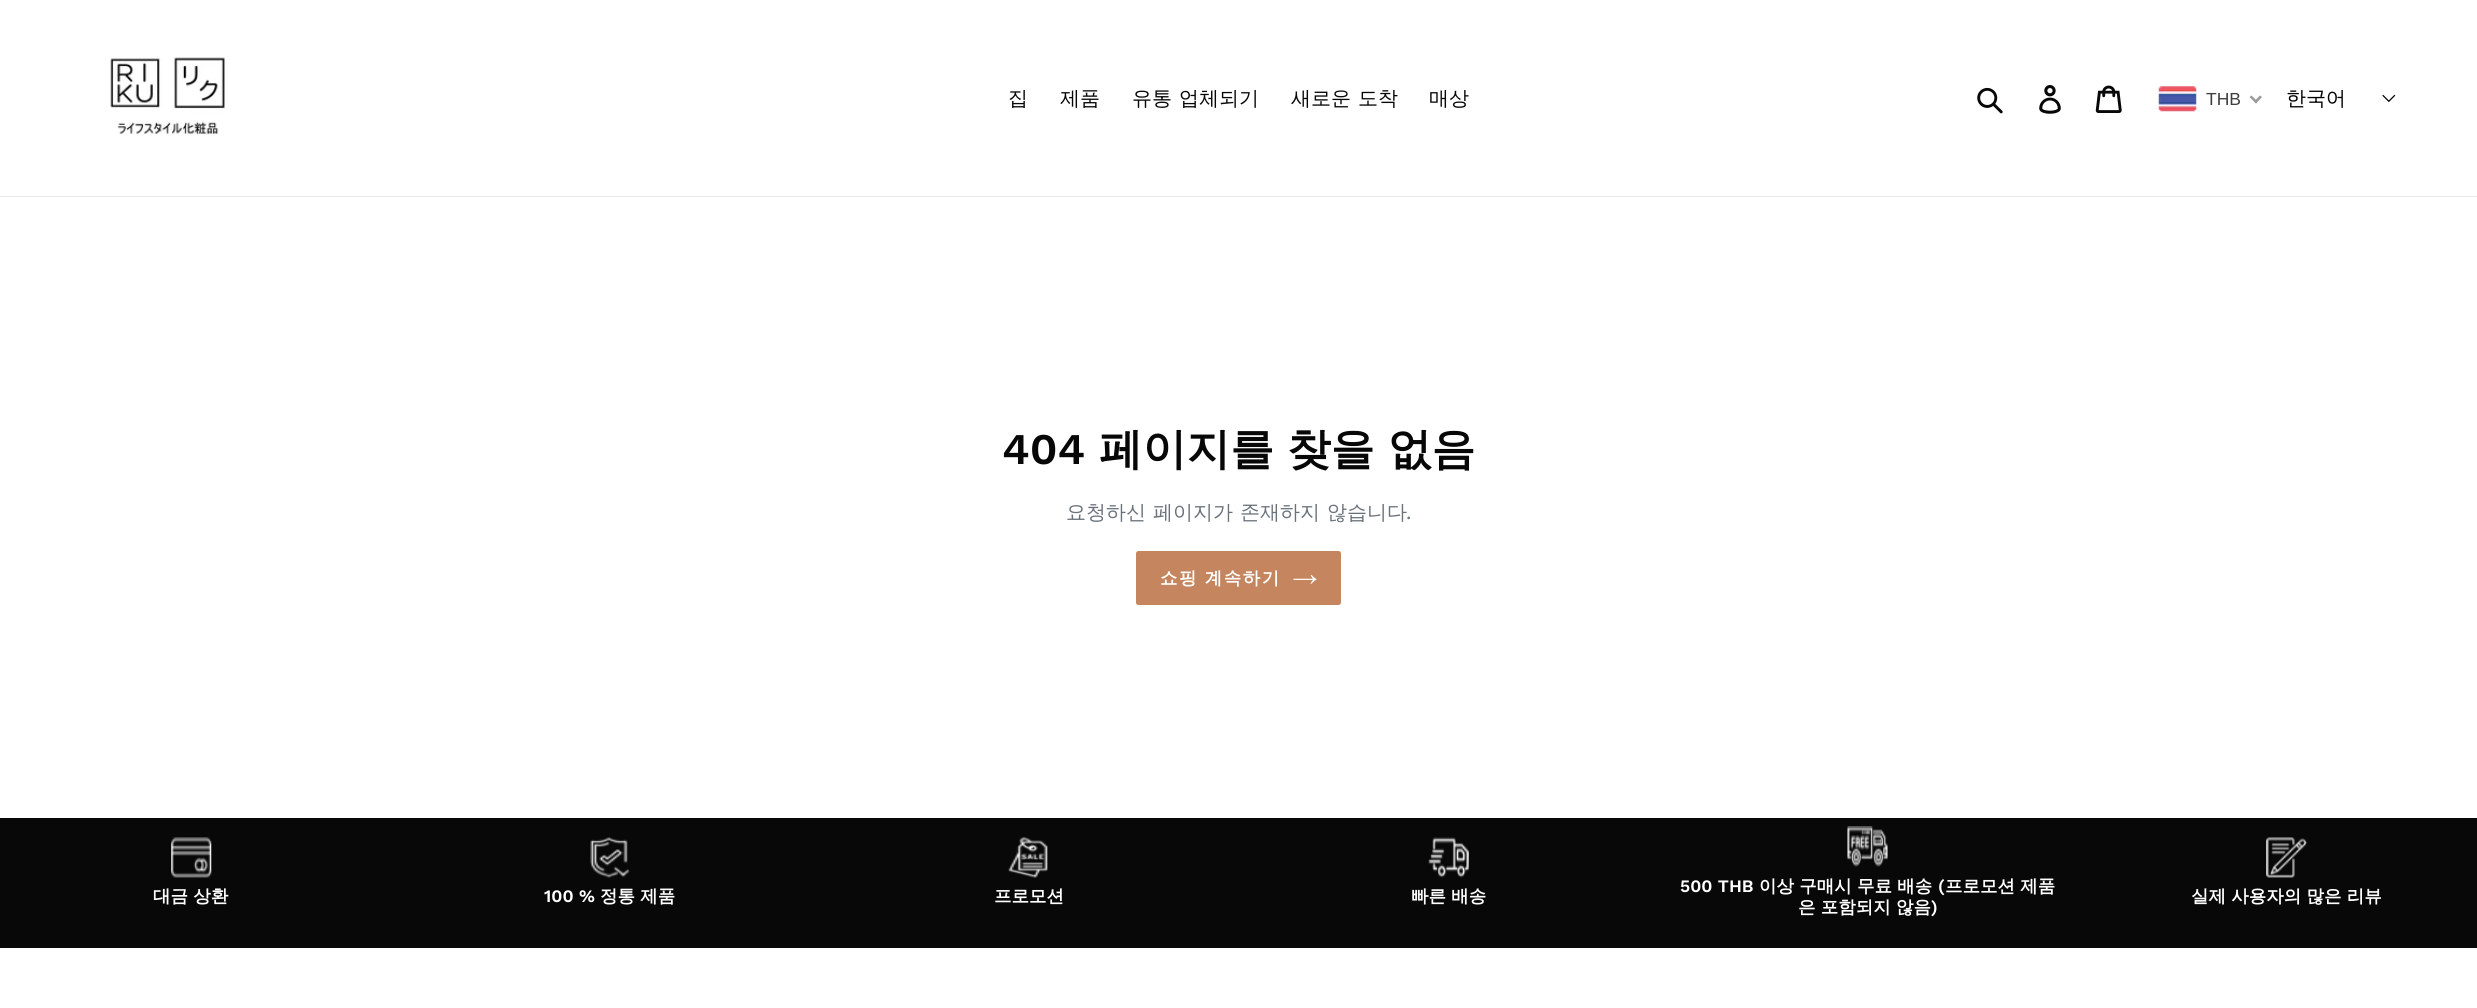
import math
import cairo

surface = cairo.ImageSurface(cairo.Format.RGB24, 2477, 1008)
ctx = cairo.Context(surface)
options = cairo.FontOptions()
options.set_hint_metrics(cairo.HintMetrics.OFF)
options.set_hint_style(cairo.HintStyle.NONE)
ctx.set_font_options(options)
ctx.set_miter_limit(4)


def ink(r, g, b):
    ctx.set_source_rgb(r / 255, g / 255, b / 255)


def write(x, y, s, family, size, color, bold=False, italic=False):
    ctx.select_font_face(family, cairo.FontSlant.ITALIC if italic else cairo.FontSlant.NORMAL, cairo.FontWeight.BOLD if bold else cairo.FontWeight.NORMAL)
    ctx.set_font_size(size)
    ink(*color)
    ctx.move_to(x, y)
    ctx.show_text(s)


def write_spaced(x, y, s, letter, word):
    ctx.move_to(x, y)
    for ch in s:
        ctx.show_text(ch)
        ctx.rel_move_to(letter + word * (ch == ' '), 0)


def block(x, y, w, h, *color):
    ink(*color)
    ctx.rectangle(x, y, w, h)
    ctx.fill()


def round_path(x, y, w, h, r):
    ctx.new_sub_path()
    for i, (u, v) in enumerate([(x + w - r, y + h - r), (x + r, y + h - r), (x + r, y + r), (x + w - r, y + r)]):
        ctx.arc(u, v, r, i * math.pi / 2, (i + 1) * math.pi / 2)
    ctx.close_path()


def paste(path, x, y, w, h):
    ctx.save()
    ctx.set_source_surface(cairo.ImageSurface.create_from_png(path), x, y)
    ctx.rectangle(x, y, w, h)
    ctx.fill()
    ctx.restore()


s1 = dict(family="WenQuanYi Zen Hei Medium", size=20, color=(7, 7, 7))
s2 = dict(family="Liberation Sans", size=17.5, color=(64, 63, 63))
s3 = dict(family="WenQuanYi Zen Hei Medium", size=20, color=(0, 0, 0))
s4 = dict(family="Work Sans SemiBold", size=43.75, color=(7, 7, 7))
s5 = dict(family="WenQuanYi Zen Hei", size=43.75, color=(7, 7, 7), bold=True)
s6 = dict(family="Work Sans", size=20, color=(105, 114, 123))
s7 = dict(family="WenQuanYi Zen Hei", size=17.5, color=(255, 255, 255), bold=True)
s8 = dict(family="Work Sans SemiBold", size=17.5, color=(255, 255, 255))

ink(255, 255, 255)
ctx.paint()
block(0, 196, 2477, 1, 232, 233, 235)
paste("pic1.png", 110, 57, 118, 78)
write(1008, 105, "집", **s1)
write(1060, 105, "제품", **s1)
write_spaced(1132, 105, "유통 업체되기", 0, 1)
write_spaced(1291, 105, "새로운 도착", 0, 1)
write(1429, 105, "매상", **s1)
paste("pic2.png", 1977, 87, 26, 27)
paste("pic3.png", 2039, 85, 22, 29)
paste("pic4.png", 2095, 85, 27, 28)
paste("pic5.png", 2158, 86, 39, 26)
write(2206, 105, "THB", **s2)
ink(153, 153, 153)
ctx.new_path()
ctx.move_to(2260, 95.5)
ctx.line_to(2262, 97)
ctx.line_to(2256, 103.5)
ctx.line_to(2254, 101.5)
ctx.close_path()
ctx.fill()
ctx.new_path()
ctx.move_to(2251.5, 95.5)
ctx.line_to(2257.5, 101.5)
ctx.line_to(2256, 103.5)
ctx.line_to(2249.5, 97)
ctx.close_path()
ctx.fill()
paste("pic6.png", 2382, 94, 14, 9)
write(2286, 105, "한국어", **s3)
write(1002, 464, "404", **s4)
write(1099, 464, "페이지를 찾을 없음", **s5)
ctx.select_font_face("WenQuanYi Zen Hei Medium")
ctx.set_font_size(20)
ink(105, 114, 123)
write_spaced(1066, 519, "요청하신 페이지가 존재하지 않습니다", 0, 1)
write(1406, 519, ".", **s6)
ink(197, 134, 95)
round_path(1136, 551, 205, 54, 2.5)
ctx.fill()
ctx.select_font_face("WenQuanYi Zen Hei", cairo.FontSlant.NORMAL, cairo.FontWeight.BOLD)
ctx.set_font_size(17.5)
ink(255, 255, 255)
write_spaced(1160, 584, "쇼핑 계속하기", 1.5, 0)
paste("pic7.png", 1293, 574, 24, 10)
block(0, 818, 2477, 130, 8, 8, 8)
paste("pic8.png", 171, 837, 41, 41)
write(153, 902, "대금 상환", **s7)
paste("pic9.png", 590, 837, 40, 41)
write(544, 902, "100 %", **s8)
write(600, 902, "정통 제품", **s7)
paste("pic10.png", 1008, 837, 40, 41)
write(994, 902, "프로모션", **s7)
paste("pic11.png", 1428, 837, 41, 41)
write(1411, 902, "빠른 배송", **s7)
paste("pic12.png", 1847, 826, 41, 41)
write(1680, 892, "500 THB", **s8)
write(1759, 892, "이상 구매시 무료 배송", **s7)
write(1938, 892, "(", **s8)
write(1945, 892, "프로모션 제품", **s7)
write(1798, 913, "은 포함되지 않음", **s7)
write(1931, 913, ")", **s8)
paste("pic13.png", 2266, 837, 41, 41)
write(2191, 902, "실제 사용자의 많은 리뷰", **s7)
surface.write_to_png("screenshot.png")
